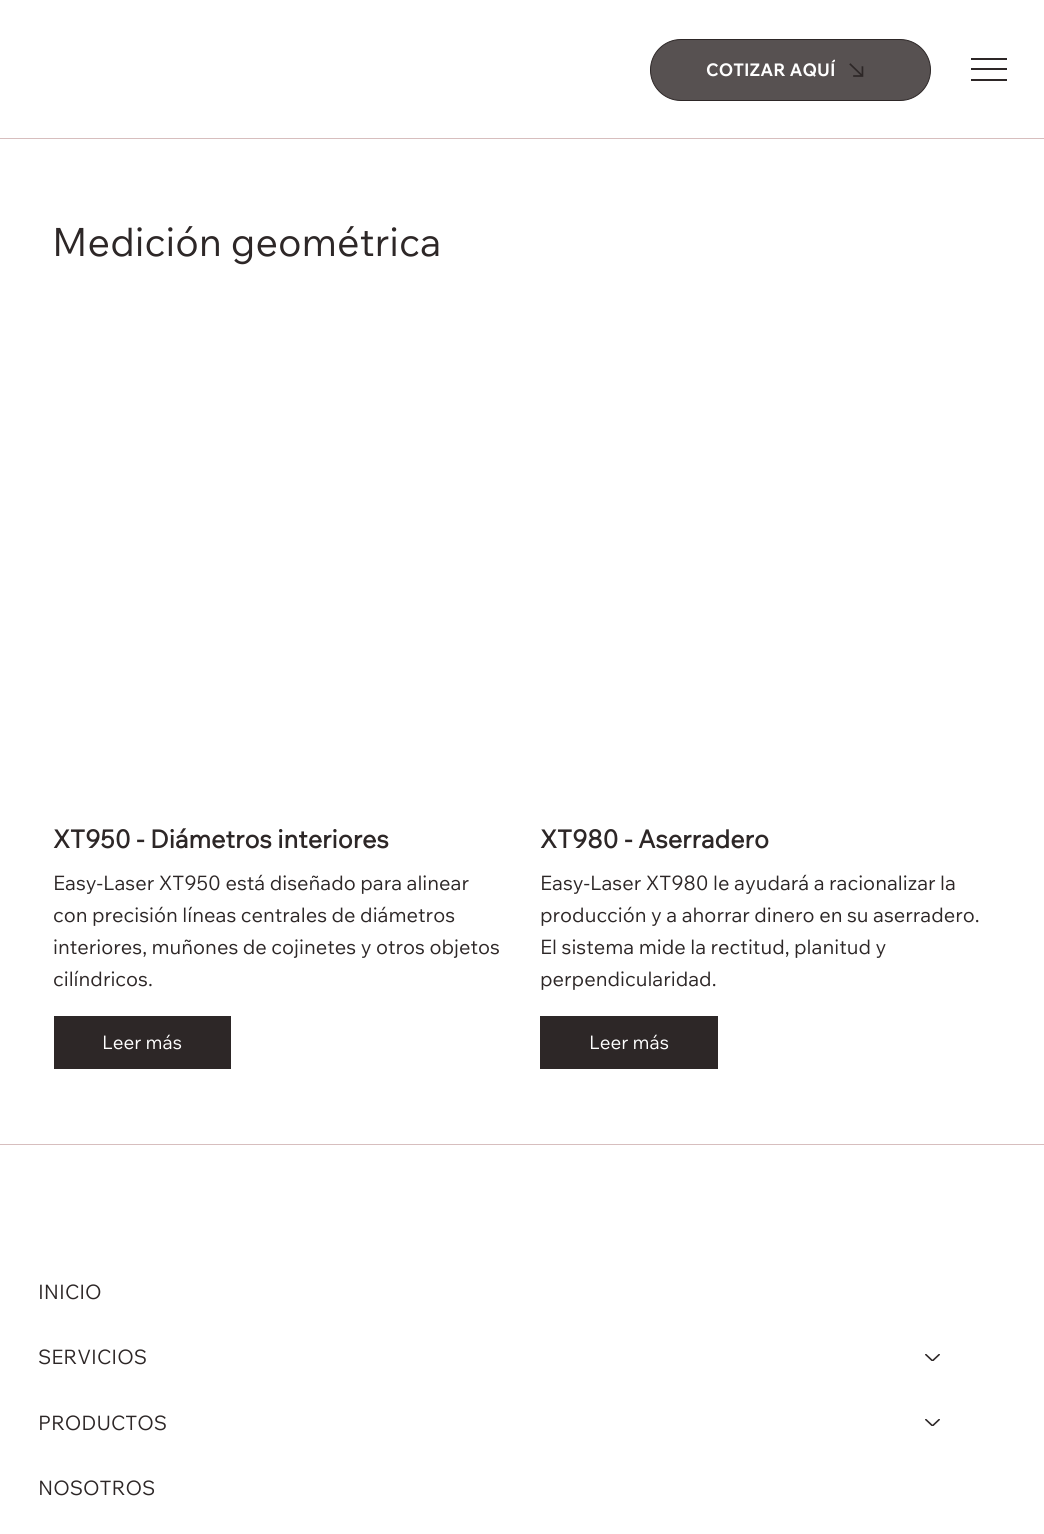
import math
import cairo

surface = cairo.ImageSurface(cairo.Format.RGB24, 1044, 1534)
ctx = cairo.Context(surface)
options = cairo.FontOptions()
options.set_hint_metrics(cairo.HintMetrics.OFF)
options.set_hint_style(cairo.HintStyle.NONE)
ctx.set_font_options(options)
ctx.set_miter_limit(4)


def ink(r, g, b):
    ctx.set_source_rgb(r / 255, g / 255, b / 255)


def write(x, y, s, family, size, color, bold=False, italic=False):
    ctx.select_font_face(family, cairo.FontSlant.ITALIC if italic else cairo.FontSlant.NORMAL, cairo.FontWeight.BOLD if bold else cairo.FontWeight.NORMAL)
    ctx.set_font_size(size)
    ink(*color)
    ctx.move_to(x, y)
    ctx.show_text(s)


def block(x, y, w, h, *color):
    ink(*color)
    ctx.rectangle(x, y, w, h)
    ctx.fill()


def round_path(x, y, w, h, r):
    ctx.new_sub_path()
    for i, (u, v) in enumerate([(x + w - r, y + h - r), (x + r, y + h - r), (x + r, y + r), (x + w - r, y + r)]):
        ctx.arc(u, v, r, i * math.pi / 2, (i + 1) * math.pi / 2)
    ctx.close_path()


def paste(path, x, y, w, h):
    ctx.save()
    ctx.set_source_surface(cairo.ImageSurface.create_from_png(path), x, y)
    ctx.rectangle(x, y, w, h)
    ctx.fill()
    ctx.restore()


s1 = dict(family="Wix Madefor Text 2", size=17.5, color=(255, 255, 255), bold=True)
s2 = dict(family="Wix Madefor Text", size=39.25, color=(45, 39, 39))
s3 = dict(family="Wix Madefor Text", size=25, color=(45, 39, 39), bold=True)
s4 = dict(family="Wix Madefor Text", size=20, color=(45, 39, 39))
s5 = dict(family="Wix Madefor Text", size=18.75, color=(255, 255, 255))

ink(255, 255, 255)
ctx.paint()
ink(87, 81, 81)
round_path(650.5, 39.5, 280, 61, 30.5)
ctx.fill_preserve()
ink(45, 39, 39)
ctx.set_line_width(1)
ctx.stroke()
ctx.save()
ctx.rectangle(706, 59, 129, 22)
ctx.clip()
write(706, 76, "COTIZAR AQUÍ", **s1)
ctx.restore()
paste("pic1.png", 849, 63, 15, 14)
block(971, 58, 36, 2, 45, 39, 39)
block(971, 68, 36, 2, 45, 39, 39)
block(971, 79, 36, 2, 45, 39, 39)
block(0, 138, 1044, 1, 215, 190, 190)
write(52, 256, "Medición geométrica", **s2)
write(53, 848, "XT950 - Diámetros interiores", **s3)
write(53, 890, "Easy-Laser XT950 está diseñado para alinear", **s4)
write(53, 922, "con precisión líneas centrales de diámetros", **s4)
write(53, 954, "interiores, muñones de cojinetes y otros objetos", **s4)
write(53, 986, "cilíndricos.", **s4)
block(54, 1016, 177, 53, 45, 39, 39)
write(102, 1049, "Leer más", **s5)
write(540, 848, "XT980 - Aserradero", **s3)
write(540, 890, "Easy-Laser XT980 le ayudará a racionalizar la", **s4)
write(540, 922, "producción y a ahorrar dinero en su aserradero.", **s4)
write(540, 954, "El sistema mide la rectitud, planitud y", **s4)
write(540, 986, "perpendicularidad.", **s4)
block(540, 1016, 178, 53, 45, 39, 39)
write(589, 1049, "Leer más", **s5)
block(0, 1144, 1044, 1, 215, 190, 190)
write(38, 1299, "INICIO", **s4)
write(38, 1364, "SERVICIOS", **s4)
paste("pic2.png", 925, 1354, 15, 7)
write(38, 1430, "PRODUCTOS", **s4)
paste("pic2.png", 925, 1419, 15, 7)
write(38, 1495, "NOSOTROS", **s4)
surface.write_to_png("screenshot.png")
